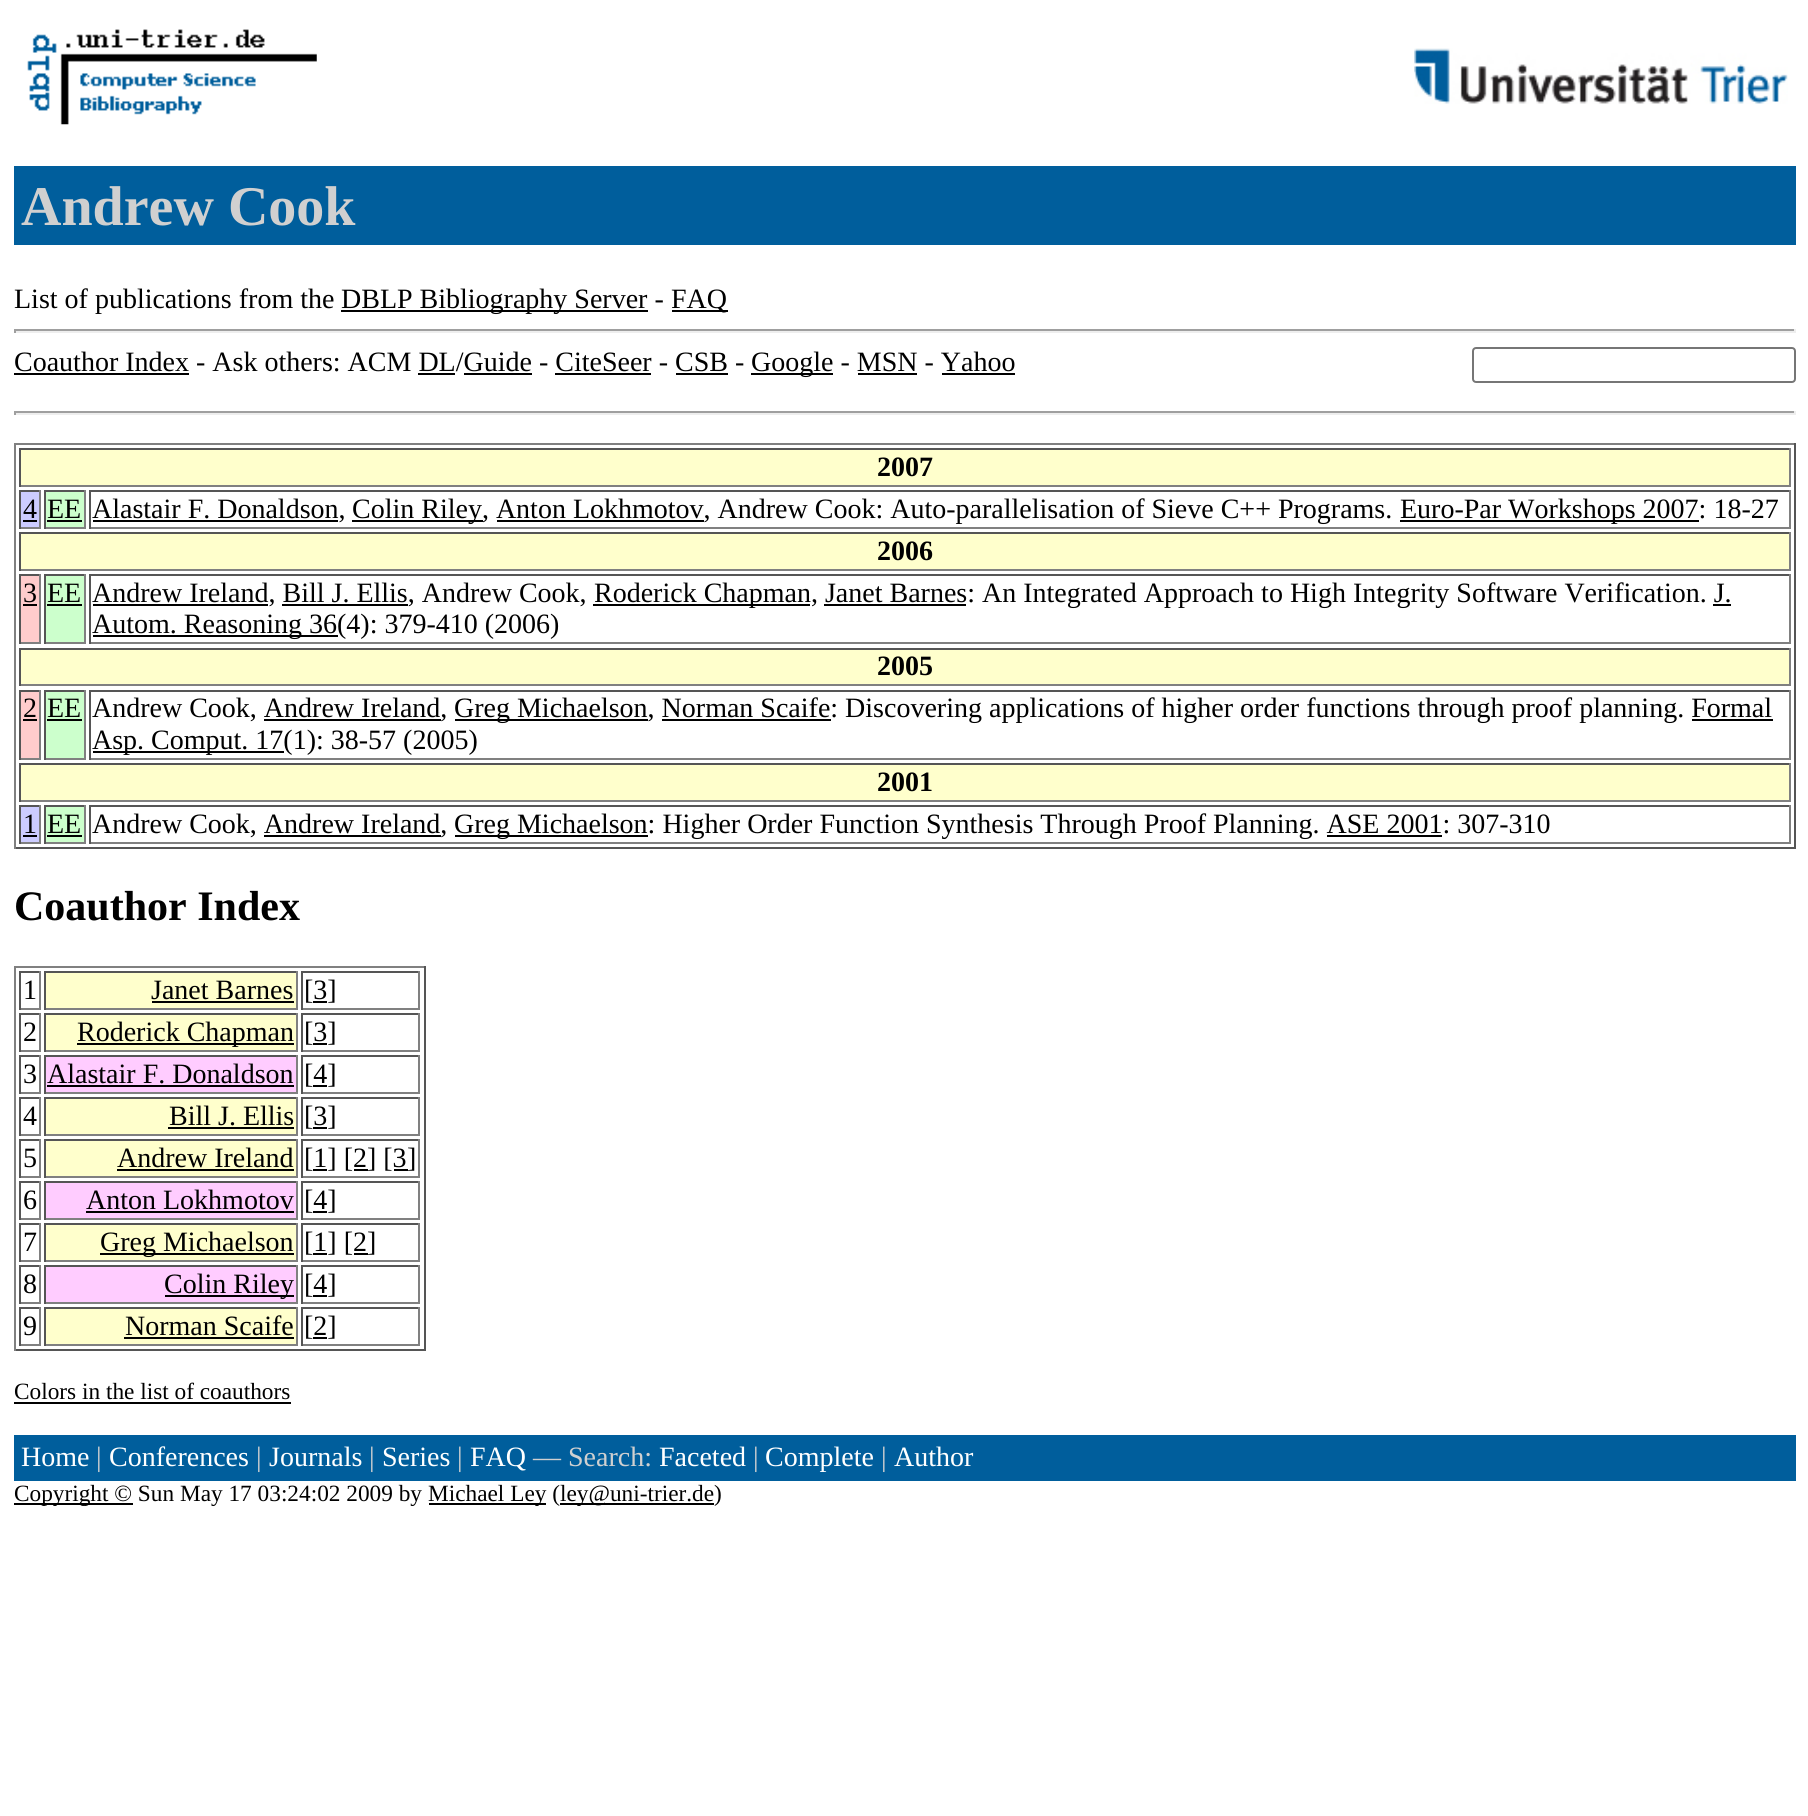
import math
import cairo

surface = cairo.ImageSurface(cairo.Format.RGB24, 1808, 1816)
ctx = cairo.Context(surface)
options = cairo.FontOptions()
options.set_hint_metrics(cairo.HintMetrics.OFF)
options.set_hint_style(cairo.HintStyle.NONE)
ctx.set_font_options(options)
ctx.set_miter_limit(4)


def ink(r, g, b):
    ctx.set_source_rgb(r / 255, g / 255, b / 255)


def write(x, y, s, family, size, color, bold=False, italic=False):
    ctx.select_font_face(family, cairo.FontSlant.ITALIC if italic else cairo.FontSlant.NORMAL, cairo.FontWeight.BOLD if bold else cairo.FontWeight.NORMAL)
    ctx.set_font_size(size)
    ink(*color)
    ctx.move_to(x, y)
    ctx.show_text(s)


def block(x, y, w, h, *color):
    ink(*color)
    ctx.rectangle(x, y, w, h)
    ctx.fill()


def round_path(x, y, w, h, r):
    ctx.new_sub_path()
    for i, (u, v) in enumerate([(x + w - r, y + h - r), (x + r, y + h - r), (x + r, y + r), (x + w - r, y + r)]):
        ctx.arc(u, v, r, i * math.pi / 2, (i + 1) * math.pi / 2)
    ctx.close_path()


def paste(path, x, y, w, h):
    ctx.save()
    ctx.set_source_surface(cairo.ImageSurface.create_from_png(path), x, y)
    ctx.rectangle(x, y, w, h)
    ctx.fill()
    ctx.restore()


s1 = dict(family="Liberation Serif", size=56, color=(208, 208, 208), bold=True)
s2 = dict(family="Liberation Serif", size=28, color=(0, 0, 0))
s3 = dict(family="Liberation Serif", size=28, color=(0, 0, 0), bold=True)
s4 = dict(family="Liberation Serif", size=42, color=(0, 0, 0), bold=True)
s5 = dict(family="Liberation Serif", size=23.3, color=(0, 0, 0))
s6 = dict(family="Liberation Serif", size=28, color=(255, 255, 255))
s7 = dict(family="Liberation Serif", size=28, color=(208, 208, 208))

ink(255, 255, 255)
ctx.paint()
paste("pic1.png", 27, 29, 290, 96)
paste("pic2.png", 1414, 48, 374, 56)
block(14, 166, 1782, 79, 0, 94, 156)
write(21, 225, "Andrew Cook", **s1)
write(14, 308, "List of publications from the", **s2)
block(341, 310, 307, 2, 0, 0, 0)
write(341, 308, "DBLP Bibliography Server -", **s2)
block(672, 310, 56, 2, 0, 0, 0)
write(671, 308, "FAQ", **s2)
block(14, 329, 1782, 2, 159, 159, 159)
block(1794, 329, 2, 4, 238, 238, 238)
block(14, 331, 1782, 2, 238, 238, 238)
block(14, 329, 2, 4, 159, 159, 159)
write(14, 371, "Coauthor Index - Ask others: ACM DL/Guide - CiteSeer - CSB -", **s2)
block(14, 373, 175, 2, 0, 0, 0)
block(751, 373, 82, 2, 0, 0, 0)
write(751, 371, "Google - MSN - Yahoo", **s2)
round_path(1473, 348, 322, 34, 3)
ink(118, 118, 118)
ctx.stroke()
block(418, 373, 37, 2, 0, 0, 0)
block(464, 373, 68, 2, 0, 0, 0)
block(555, 373, 96, 2, 0, 0, 0)
block(676, 373, 52, 2, 0, 0, 0)
block(858, 373, 59, 2, 0, 0, 0)
block(942, 373, 73, 2, 0, 0, 0)
block(14, 411, 1782, 2, 159, 159, 159)
block(1794, 411, 2, 4, 238, 238, 238)
block(14, 413, 1782, 2, 238, 238, 238)
block(14, 411, 2, 4, 159, 159, 159)
block(14, 443, 1782, 2, 128, 128, 128)
block(1794, 443, 2, 406, 85, 85, 85)
block(14, 847, 1782, 2, 85, 85, 85)
block(14, 443, 2, 406, 128, 128, 128)
block(21, 450, 1768, 35, 255, 255, 204)
block(19, 448, 1771, 2, 85, 85, 85)
block(1789, 448, 2, 39, 128, 128, 128)
block(19, 485, 1771, 2, 128, 128, 128)
block(19, 448, 2, 39, 85, 85, 85)
write(877, 476, "2007", **s3)
block(21, 492, 18, 35, 204, 204, 255)
block(19, 490, 21, 2, 85, 85, 85)
block(39, 490, 2, 39, 128, 128, 128)
block(19, 527, 21, 2, 128, 128, 128)
block(19, 490, 2, 39, 85, 85, 85)
write(23, 518, "4", **s2)
block(23, 520, 14, 2, 0, 0, 0)
block(46, 492, 38, 35, 204, 255, 204)
block(44, 490, 42, 2, 85, 85, 85)
block(84, 490, 2, 39, 128, 128, 128)
block(44, 527, 42, 2, 128, 128, 128)
block(44, 490, 2, 39, 85, 85, 85)
write(47, 518, "EE", **s2)
block(47, 520, 35, 2, 0, 0, 0)
block(89, 490, 1701, 2, 85, 85, 85)
block(1789, 490, 2, 39, 128, 128, 128)
block(89, 527, 1701, 2, 128, 128, 128)
block(89, 490, 2, 39, 85, 85, 85)
block(93, 520, 245, 2, 0, 0, 0)
write(92, 518, "Alastair F. Donaldson,", **s2)
block(352, 520, 131, 2, 0, 0, 0)
write(352, 518, "Colin Riley, Anton Lokhmotov, Andrew Cook: Auto-parallelisation of Sieve C++ Programs.", **s2)
block(1400, 520, 299, 2, 0, 0, 0)
write(1400, 518, "Euro-Par Workshops 2007: 18-27", **s2)
block(497, 520, 207, 2, 0, 0, 0)
block(21, 534, 1768, 35, 255, 255, 204)
block(19, 532, 1771, 2, 85, 85, 85)
block(1789, 532, 2, 39, 128, 128, 128)
block(19, 569, 1771, 2, 128, 128, 128)
block(19, 532, 2, 39, 85, 85, 85)
write(877, 560, "2006", **s3)
block(21, 576, 18, 66, 255, 204, 204)
block(19, 574, 21, 2, 85, 85, 85)
block(39, 574, 2, 70, 128, 128, 128)
block(19, 642, 21, 2, 128, 128, 128)
block(19, 574, 2, 70, 85, 85, 85)
write(23, 602, "3", **s2)
block(23, 604, 14, 2, 0, 0, 0)
block(46, 576, 38, 66, 204, 255, 204)
block(44, 574, 42, 2, 85, 85, 85)
block(84, 574, 2, 70, 128, 128, 128)
block(44, 642, 42, 2, 128, 128, 128)
block(44, 574, 2, 70, 85, 85, 85)
write(47, 602, "EE", **s2)
block(47, 604, 35, 2, 0, 0, 0)
block(89, 574, 1701, 2, 85, 85, 85)
block(1789, 574, 2, 70, 128, 128, 128)
block(89, 642, 1701, 2, 128, 128, 128)
block(89, 574, 2, 70, 85, 85, 85)
block(93, 604, 175, 2, 0, 0, 0)
write(92, 602, "Andrew Ireland, Bill J. Ellis, Andrew Cook,", **s2)
block(593, 604, 217, 2, 0, 0, 0)
write(594, 602, "Roderick Chapman, Janet Barnes: An Integrated Approach to High Integrity Software Verification. J.", **s2)
block(282, 604, 126, 2, 0, 0, 0)
block(824, 604, 142, 2, 0, 0, 0)
block(93, 635, 245, 2, 0, 0, 0)
write(92, 633, "Autom. Reasoning 36(4): 379-410 (2006)", **s2)
block(1713, 604, 18, 2, 0, 0, 0)
block(21, 650, 1768, 34, 255, 255, 204)
block(19, 648, 1771, 2, 85, 85, 85)
block(1789, 648, 2, 38, 128, 128, 128)
block(19, 684, 1771, 2, 128, 128, 128)
block(19, 648, 2, 38, 85, 85, 85)
write(877, 675, "2005", **s3)
block(21, 692, 18, 66, 255, 204, 204)
block(19, 690, 21, 2, 85, 85, 85)
block(39, 690, 2, 70, 128, 128, 128)
block(19, 758, 21, 2, 128, 128, 128)
block(19, 690, 2, 70, 85, 85, 85)
write(23, 717, "2", **s2)
block(23, 719, 14, 2, 0, 0, 0)
block(46, 692, 38, 66, 204, 255, 204)
block(44, 690, 42, 2, 85, 85, 85)
block(84, 690, 2, 70, 128, 128, 128)
block(44, 758, 42, 2, 128, 128, 128)
block(44, 690, 2, 70, 85, 85, 85)
write(47, 717, "EE", **s2)
block(47, 719, 35, 2, 0, 0, 0)
block(89, 690, 1701, 2, 85, 85, 85)
block(1789, 690, 2, 70, 128, 128, 128)
block(89, 758, 1701, 2, 128, 128, 128)
block(89, 690, 2, 70, 85, 85, 85)
write(92, 717, "Andrew Cook, Andrew Ireland,", **s2)
block(455, 719, 193, 2, 0, 0, 0)
write(454, 717, "Greg Michaelson, Norman Scaife: Discovering applications of higher order functions through proof planning. Formal", **s2)
block(264, 719, 177, 2, 0, 0, 0)
block(662, 719, 169, 2, 0, 0, 0)
block(93, 751, 191, 2, 0, 0, 0)
write(92, 749, "Asp. Comput. 17(1): 38-57 (2005)", **s2)
block(1692, 719, 81, 2, 0, 0, 0)
block(21, 765, 1768, 35, 255, 255, 204)
block(19, 763, 1771, 2, 85, 85, 85)
block(1789, 763, 2, 39, 128, 128, 128)
block(19, 800, 1771, 2, 128, 128, 128)
block(19, 763, 2, 39, 85, 85, 85)
write(877, 791, "2001", **s3)
block(21, 807, 18, 35, 204, 204, 255)
block(19, 805, 21, 2, 85, 85, 85)
block(39, 805, 2, 39, 128, 128, 128)
block(19, 842, 21, 2, 128, 128, 128)
block(19, 805, 2, 39, 85, 85, 85)
write(23, 833, "1", **s2)
block(23, 835, 14, 2, 0, 0, 0)
block(46, 807, 38, 35, 204, 255, 204)
block(44, 805, 42, 2, 85, 85, 85)
block(84, 805, 2, 39, 128, 128, 128)
block(44, 842, 42, 2, 128, 128, 128)
block(44, 805, 2, 39, 85, 85, 85)
write(47, 833, "EE", **s2)
block(47, 835, 35, 2, 0, 0, 0)
block(89, 805, 1701, 2, 85, 85, 85)
block(1789, 805, 2, 39, 128, 128, 128)
block(89, 842, 1701, 2, 128, 128, 128)
block(89, 805, 2, 39, 85, 85, 85)
write(92, 833, "Andrew Cook, Andrew Ireland,", **s2)
block(455, 835, 193, 2, 0, 0, 0)
write(454, 833, "Greg Michaelson: Higher Order Function Synthesis Through Proof Planning. ASE 2001: 307-310", **s2)
block(264, 835, 177, 2, 0, 0, 0)
block(1327, 835, 115, 2, 0, 0, 0)
write(14, 920, "Coauthor Index", **s4)
block(14, 966, 411, 2, 128, 128, 128)
block(424, 966, 2, 385, 85, 85, 85)
block(14, 1349, 411, 2, 85, 85, 85)
block(14, 966, 2, 385, 128, 128, 128)
block(19, 971, 21, 2, 85, 85, 85)
block(39, 971, 2, 39, 128, 128, 128)
block(19, 1008, 21, 2, 128, 128, 128)
block(19, 971, 2, 39, 85, 85, 85)
write(23, 999, "1", **s2)
block(46, 973, 250, 35, 255, 255, 204)
block(44, 971, 254, 2, 85, 85, 85)
block(296, 971, 2, 39, 128, 128, 128)
block(44, 1008, 254, 2, 128, 128, 128)
block(44, 971, 2, 39, 85, 85, 85)
write(151, 999, "Janet Barnes", **s2)
block(152, 1001, 142, 2, 0, 0, 0)
block(301, 971, 119, 2, 85, 85, 85)
block(418, 971, 2, 39, 128, 128, 128)
block(301, 1008, 119, 2, 128, 128, 128)
block(301, 971, 2, 39, 85, 85, 85)
write(304, 999, "[3]", **s2)
block(313, 1001, 14, 2, 0, 0, 0)
block(19, 1013, 21, 2, 85, 85, 85)
block(39, 1013, 2, 39, 128, 128, 128)
block(19, 1050, 21, 2, 128, 128, 128)
block(19, 1013, 2, 39, 85, 85, 85)
write(23, 1041, "2", **s2)
block(46, 1015, 250, 35, 255, 255, 204)
block(44, 1013, 254, 2, 85, 85, 85)
block(296, 1013, 2, 39, 128, 128, 128)
block(44, 1050, 254, 2, 128, 128, 128)
block(44, 1013, 2, 39, 85, 85, 85)
block(77, 1043, 217, 2, 0, 0, 0)
write(77, 1041, "Roderick Chapman", **s2)
block(301, 1013, 119, 2, 85, 85, 85)
block(418, 1013, 2, 39, 128, 128, 128)
block(301, 1050, 119, 2, 128, 128, 128)
block(301, 1013, 2, 39, 85, 85, 85)
write(304, 1041, "[3]", **s2)
block(313, 1043, 14, 2, 0, 0, 0)
block(19, 1055, 21, 2, 85, 85, 85)
block(39, 1055, 2, 39, 128, 128, 128)
block(19, 1092, 21, 2, 128, 128, 128)
block(19, 1055, 2, 39, 85, 85, 85)
write(23, 1083, "3", **s2)
block(46, 1057, 250, 35, 255, 204, 255)
block(44, 1055, 254, 2, 85, 85, 85)
block(296, 1055, 2, 39, 128, 128, 128)
block(44, 1092, 254, 2, 128, 128, 128)
block(44, 1055, 2, 39, 85, 85, 85)
write(47, 1083, "Alastair F. Donaldson", **s2)
block(47, 1085, 247, 2, 0, 0, 0)
block(301, 1055, 119, 2, 85, 85, 85)
block(418, 1055, 2, 39, 128, 128, 128)
block(301, 1092, 119, 2, 128, 128, 128)
block(301, 1055, 2, 39, 85, 85, 85)
write(304, 1083, "[4]", **s2)
block(313, 1085, 14, 2, 0, 0, 0)
block(19, 1097, 21, 2, 85, 85, 85)
block(39, 1097, 2, 39, 128, 128, 128)
block(19, 1134, 21, 2, 128, 128, 128)
block(19, 1097, 2, 39, 85, 85, 85)
write(23, 1125, "4", **s2)
block(46, 1099, 250, 35, 255, 255, 204)
block(44, 1097, 254, 2, 85, 85, 85)
block(296, 1097, 2, 39, 128, 128, 128)
block(44, 1134, 254, 2, 128, 128, 128)
block(44, 1097, 2, 39, 85, 85, 85)
write(169, 1125, "Bill J. Ellis", **s2)
block(168, 1127, 126, 2, 0, 0, 0)
block(301, 1097, 119, 2, 85, 85, 85)
block(418, 1097, 2, 39, 128, 128, 128)
block(301, 1134, 119, 2, 128, 128, 128)
block(301, 1097, 2, 39, 85, 85, 85)
write(304, 1125, "[3]", **s2)
block(313, 1127, 14, 2, 0, 0, 0)
block(19, 1139, 21, 2, 85, 85, 85)
block(39, 1139, 2, 39, 128, 128, 128)
block(19, 1176, 21, 2, 128, 128, 128)
block(19, 1139, 2, 39, 85, 85, 85)
write(23, 1167, "5", **s2)
block(46, 1141, 250, 35, 255, 255, 204)
block(44, 1139, 254, 2, 85, 85, 85)
block(296, 1139, 2, 39, 128, 128, 128)
block(44, 1176, 254, 2, 128, 128, 128)
block(44, 1139, 2, 39, 85, 85, 85)
write(117, 1167, "Andrew Ireland", **s2)
block(117, 1169, 177, 2, 0, 0, 0)
block(301, 1139, 119, 2, 85, 85, 85)
block(418, 1139, 2, 39, 128, 128, 128)
block(301, 1176, 119, 2, 128, 128, 128)
block(301, 1139, 2, 39, 85, 85, 85)
write(304, 1167, "[1] [2] [3", **s2)
block(394, 1169, 14, 2, 0, 0, 0)
write(407, 1167, "]", **s2)
block(313, 1169, 14, 2, 0, 0, 0)
block(354, 1169, 14, 2, 0, 0, 0)
block(19, 1181, 21, 2, 85, 85, 85)
block(39, 1181, 2, 39, 128, 128, 128)
block(19, 1218, 21, 2, 128, 128, 128)
block(19, 1181, 2, 39, 85, 85, 85)
write(23, 1209, "6", **s2)
block(46, 1183, 250, 35, 255, 204, 255)
block(44, 1181, 254, 2, 85, 85, 85)
block(296, 1181, 2, 39, 128, 128, 128)
block(44, 1218, 254, 2, 128, 128, 128)
block(44, 1181, 2, 39, 85, 85, 85)
write(86, 1209, "Anton Lokhmotov", **s2)
block(86, 1211, 208, 2, 0, 0, 0)
block(301, 1181, 119, 2, 85, 85, 85)
block(418, 1181, 2, 39, 128, 128, 128)
block(301, 1218, 119, 2, 128, 128, 128)
block(301, 1181, 2, 39, 85, 85, 85)
write(304, 1209, "[4]", **s2)
block(313, 1211, 14, 2, 0, 0, 0)
block(19, 1223, 21, 2, 85, 85, 85)
block(39, 1223, 2, 39, 128, 128, 128)
block(19, 1260, 21, 2, 128, 128, 128)
block(19, 1223, 2, 39, 85, 85, 85)
write(23, 1251, "7", **s2)
block(46, 1225, 250, 35, 255, 255, 204)
block(44, 1223, 254, 2, 85, 85, 85)
block(296, 1223, 2, 39, 128, 128, 128)
block(44, 1260, 254, 2, 128, 128, 128)
block(44, 1223, 2, 39, 85, 85, 85)
block(100, 1253, 194, 2, 0, 0, 0)
write(100, 1251, "Greg Michaelson", **s2)
block(301, 1223, 119, 2, 85, 85, 85)
block(418, 1223, 2, 39, 128, 128, 128)
block(301, 1260, 119, 2, 128, 128, 128)
block(301, 1223, 2, 39, 85, 85, 85)
write(304, 1251, "[1] [2]", **s2)
block(313, 1253, 14, 2, 0, 0, 0)
block(354, 1253, 14, 2, 0, 0, 0)
block(19, 1265, 21, 2, 85, 85, 85)
block(39, 1265, 2, 39, 128, 128, 128)
block(19, 1302, 21, 2, 128, 128, 128)
block(19, 1265, 2, 39, 85, 85, 85)
write(23, 1293, "8", **s2)
block(46, 1267, 250, 35, 255, 204, 255)
block(44, 1265, 254, 2, 85, 85, 85)
block(296, 1265, 2, 39, 128, 128, 128)
block(44, 1302, 254, 2, 128, 128, 128)
block(44, 1265, 2, 39, 85, 85, 85)
block(165, 1295, 129, 2, 0, 0, 0)
write(164, 1293, "Colin Riley", **s2)
block(301, 1265, 119, 2, 85, 85, 85)
block(418, 1265, 2, 39, 128, 128, 128)
block(301, 1302, 119, 2, 128, 128, 128)
block(301, 1265, 2, 39, 85, 85, 85)
write(304, 1293, "[4]", **s2)
block(313, 1295, 14, 2, 0, 0, 0)
block(19, 1307, 21, 2, 85, 85, 85)
block(39, 1307, 2, 39, 128, 128, 128)
block(19, 1344, 21, 2, 128, 128, 128)
block(19, 1307, 2, 39, 85, 85, 85)
write(23, 1335, "9", **s2)
block(46, 1309, 250, 35, 255, 255, 204)
block(44, 1307, 254, 2, 85, 85, 85)
block(296, 1307, 2, 39, 128, 128, 128)
block(44, 1344, 254, 2, 128, 128, 128)
block(44, 1307, 2, 39, 85, 85, 85)
write(125, 1335, "Norman Scaife", **s2)
block(124, 1337, 170, 2, 0, 0, 0)
block(301, 1307, 119, 2, 85, 85, 85)
block(418, 1307, 2, 39, 128, 128, 128)
block(301, 1344, 119, 2, 128, 128, 128)
block(301, 1307, 2, 39, 85, 85, 85)
write(304, 1335, "[2]", **s2)
block(313, 1337, 14, 2, 0, 0, 0)
write(14, 1399, "Colors in the list of coauthors", **s5)
block(14, 1402, 277, 2, 0, 0, 0)
block(14, 1435, 1782, 46, 0, 94, 156)
write(21, 1466, "Home", **s6)
write(96, 1466, "|", **s7)
write(109, 1466, "Conferences", **s6)
write(256, 1466, "|", **s7)
write(269, 1466, "Journals", **s6)
write(369, 1466, "|", **s7)
write(382, 1466, "Series", **s6)
write(457, 1466, "|", **s7)
write(470, 1466, "FAQ", **s6)
write(533, 1466, "— Search:", **s7)
write(659, 1466, "Faceted", **s6)
write(753, 1466, "|", **s7)
write(765, 1466, "Complete", **s6)
write(881, 1466, "|", **s7)
write(894, 1466, "Author", **s6)
block(14, 1503, 119, 2, 0, 0, 0)
write(14, 1501, "Copyright © Sun May 17 03:24:02 2009 by", **s5)
block(429, 1503, 117, 2, 0, 0, 0)
write(428, 1501, "Michael Ley (", **s5)
block(560, 1503, 154, 2, 0, 0, 0)
write(560, 1501, "ley@uni-trier.de)", **s5)
surface.write_to_png("screenshot.png")
